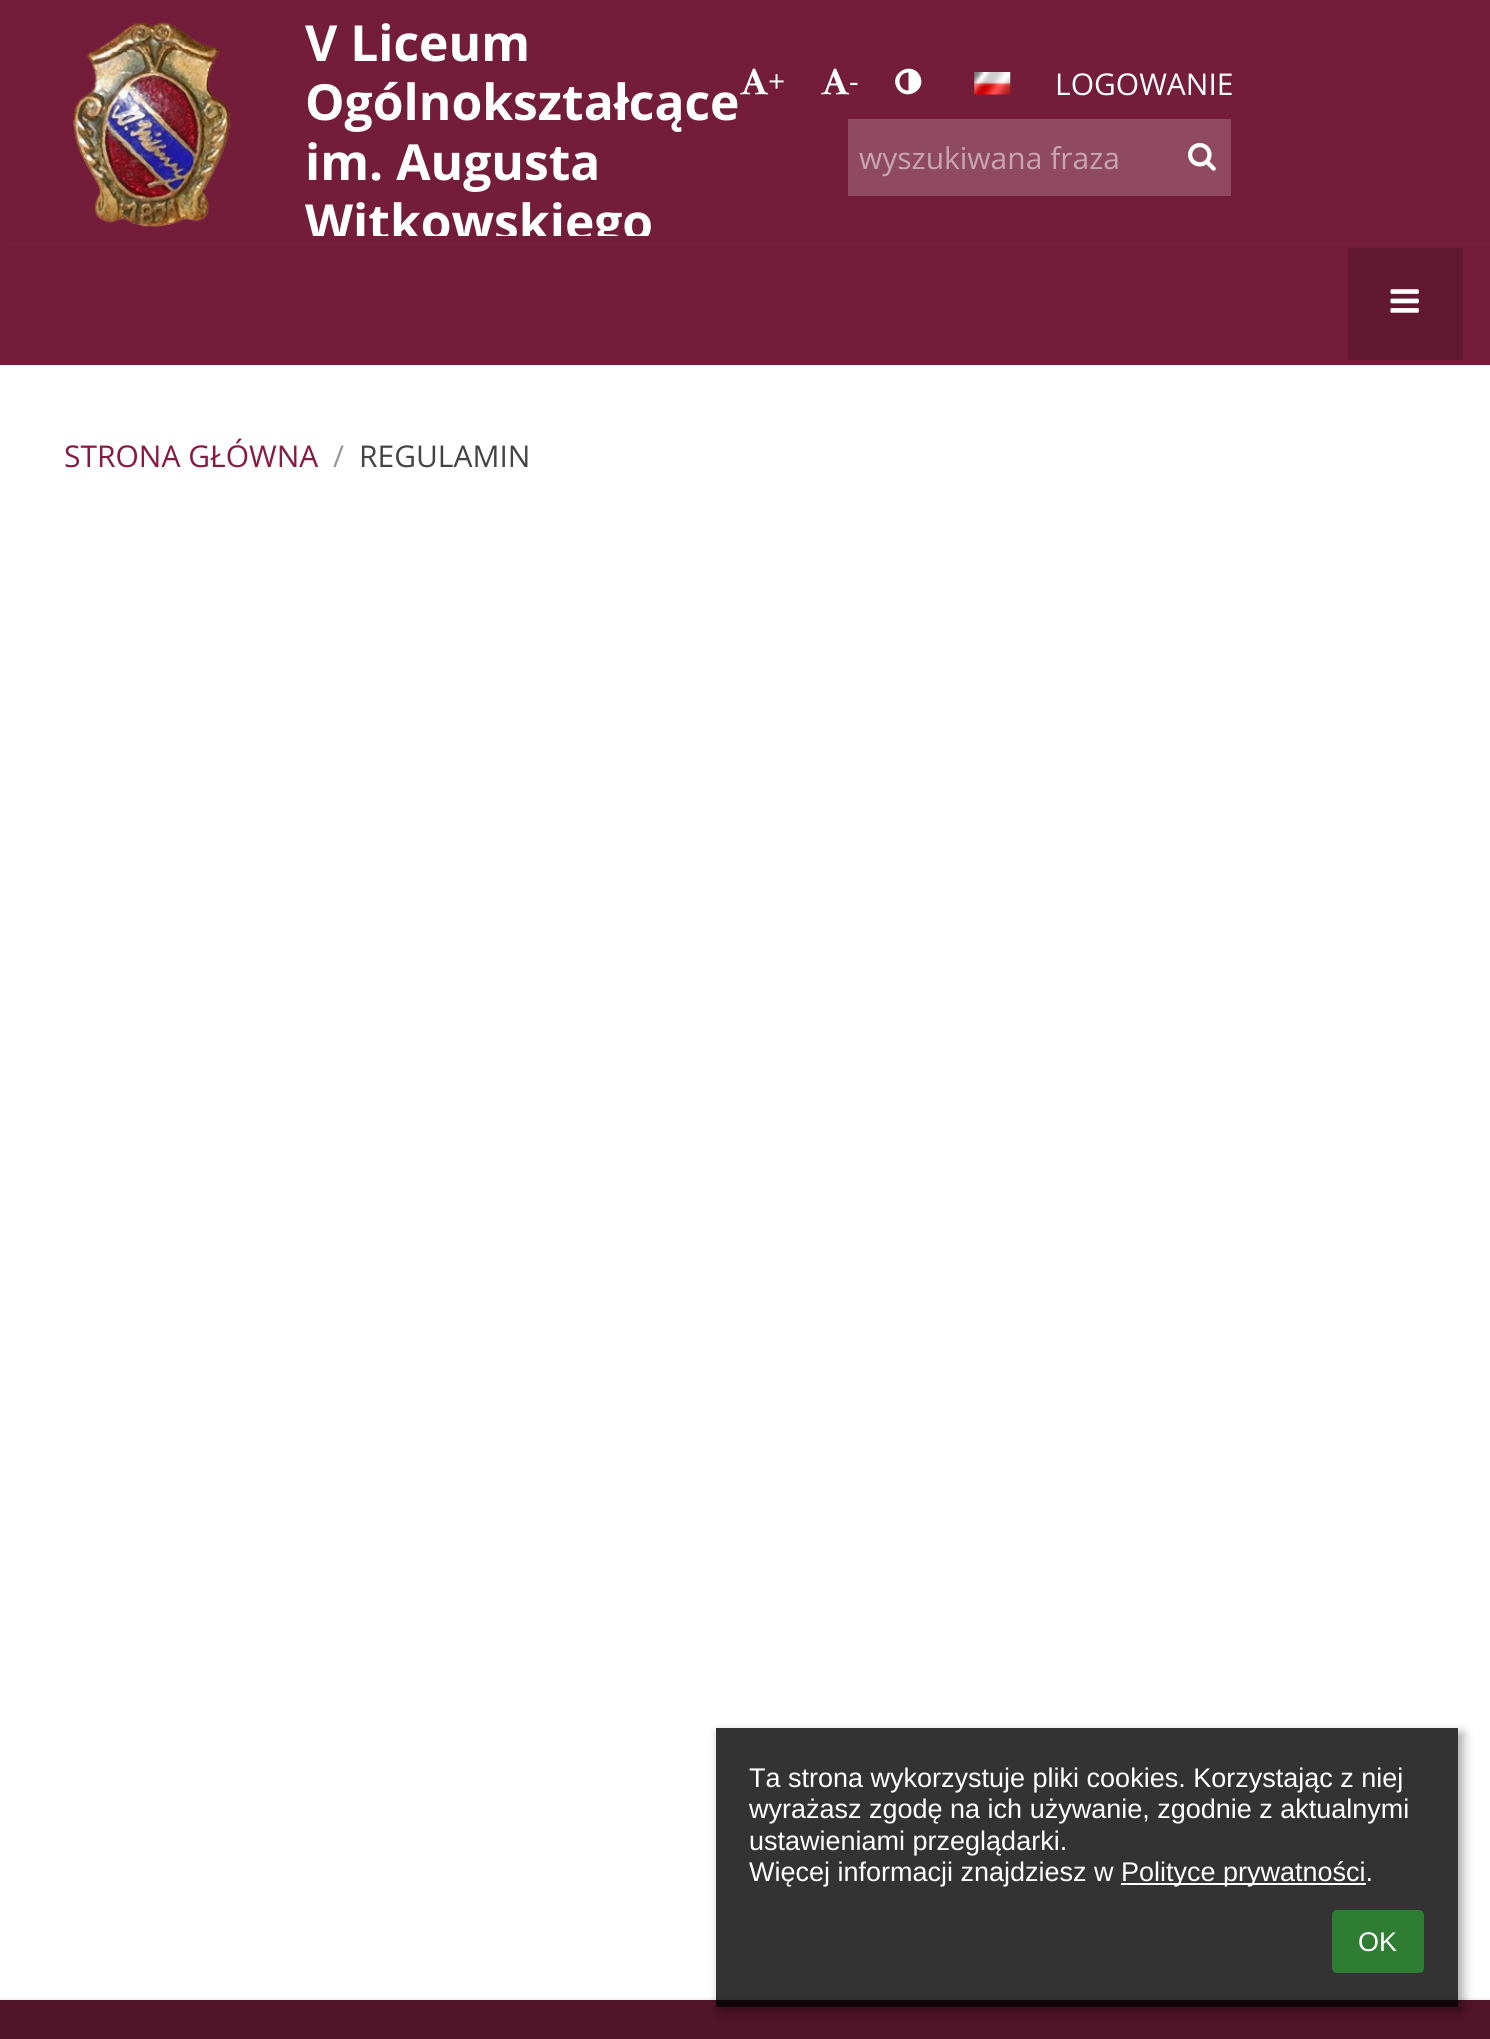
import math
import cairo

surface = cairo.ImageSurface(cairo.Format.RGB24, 1490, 2039)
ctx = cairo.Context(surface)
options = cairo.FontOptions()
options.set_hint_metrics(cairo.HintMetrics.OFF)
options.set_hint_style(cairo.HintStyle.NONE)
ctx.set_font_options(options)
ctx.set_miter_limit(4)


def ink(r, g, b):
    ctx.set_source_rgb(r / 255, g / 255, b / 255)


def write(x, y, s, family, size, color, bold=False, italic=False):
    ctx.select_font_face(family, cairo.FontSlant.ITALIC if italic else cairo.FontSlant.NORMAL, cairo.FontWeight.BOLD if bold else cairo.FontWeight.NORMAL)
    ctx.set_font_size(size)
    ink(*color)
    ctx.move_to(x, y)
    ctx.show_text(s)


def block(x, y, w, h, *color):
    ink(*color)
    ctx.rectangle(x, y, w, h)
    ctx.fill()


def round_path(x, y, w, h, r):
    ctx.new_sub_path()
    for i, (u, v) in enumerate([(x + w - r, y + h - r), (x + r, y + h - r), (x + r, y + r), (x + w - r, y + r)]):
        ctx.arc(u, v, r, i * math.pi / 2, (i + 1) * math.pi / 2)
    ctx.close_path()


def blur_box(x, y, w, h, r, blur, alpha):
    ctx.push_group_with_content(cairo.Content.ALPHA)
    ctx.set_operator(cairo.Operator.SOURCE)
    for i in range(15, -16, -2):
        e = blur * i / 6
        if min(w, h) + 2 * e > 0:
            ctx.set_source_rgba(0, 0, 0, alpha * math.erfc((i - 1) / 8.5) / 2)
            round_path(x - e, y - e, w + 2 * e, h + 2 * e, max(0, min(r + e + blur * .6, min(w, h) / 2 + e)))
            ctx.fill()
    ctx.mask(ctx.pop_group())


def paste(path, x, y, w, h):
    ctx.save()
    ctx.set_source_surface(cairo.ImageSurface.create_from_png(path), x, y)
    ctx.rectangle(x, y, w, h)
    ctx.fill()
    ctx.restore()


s1 = dict(family="Open Sans", size=49.75, color=(255, 255, 255), bold=True)
s2 = dict(family="Open Sans", size=30, color=(255, 255, 255))
s3 = dict(family="Open Sans", size=30, color=(199, 165, 176))
s4 = dict(family="Open Sans", size=30, color=(135, 25, 69))
s5 = dict(family="Open Sans", size=30, color=(152, 151, 152))
s6 = dict(family="Open Sans", size=30, color=(69, 67, 69))
s7 = dict(family="Liberation Sans", size=27, color=(255, 255, 255))

ink(115, 29, 58)
ctx.paint()
paste("pic1.png", 73, 22, 158, 205)
write(305, 61, "V Liceum", **s1)
write(305, 120, "Ogólnokształcące", **s1)
write(305, 180, "im. Augusta", **s1)
ctx.save()
ctx.rectangle(272, 11, 574, 225)
ctx.clip()
write(305, 240, "Witkowskiego", **s1)
ctx.restore()
paste("pic2.png", 740, 68, 29, 27)
write(768, 92, "+", **s2)
paste("pic2.png", 821, 68, 29, 27)
write(849, 92, "-", **s2)
ctx.new_path()
ctx.move_to(908.5, 90.5)
ctx.line_to(908.5, 72.5)
ctx.curve_to(896.5, 72.5, 896.5, 90.5, 908.5, 90.5)
ctx.close_path()
ctx.move_to(919.5, 75)
ctx.curve_to(928, 89.5, 906, 102.5, 897, 88)
ctx.curve_to(888.5, 73.5, 911, 60.5, 919.5, 75)
ctx.close_path()
ctx.fill()
paste("pic3.png", 974, 72, 37, 23)
write(1055, 95, "LOGOWANIE", **s2)
block(848, 119, 383, 77, 143, 74, 97)
write(859, 169, "wyszukiwana fraza", **s3)
paste("pic4.png", 1188, 142, 28, 29)
ctx.save()
ctx.set_fill_rule(cairo.FillRule.EVEN_ODD)
ctx.new_path()
ctx.move_to(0, 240)
ctx.line_to(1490, 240)
ctx.line_to(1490, 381)
ctx.line_to(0, 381)
ctx.close_path()
ctx.move_to(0, 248)
ctx.line_to(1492, 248)
ctx.line_to(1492, 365)
ctx.line_to(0, 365)
ctx.close_path()
ctx.clip()
ink(0, 0, 0)
blur_box(5, 252, 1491, 117, 0, 3.5, 0.4)
ctx.restore()
block(1348, 248, 115, 112, 97, 24, 49)
paste("pic5.png", 1390, 289, 29, 24)
block(0, 365, 1490, 1633, 255, 255, 255)
block(716, 1728, 742, 270, 51, 51, 51)
write(64, 467, "STRONA GŁÓWNA", **s4)
write(333, 467, "/", **s5)
write(359, 467, "REGULAMIN", **s6)
block(0, 2000, 1490, 39, 82, 20, 41)
block(716, 2000, 742, 7, 16, 4, 8)
block(0, 1998, 1490, 2, 243, 243, 243)
block(716, 1998, 742, 2, 49, 49, 49)
ctx.save()
ctx.set_fill_rule(cairo.FillRule.EVEN_ODD)
ctx.new_path()
ctx.move_to(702, 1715)
ctx.line_to(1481, 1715)
ctx.line_to(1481, 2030)
ctx.line_to(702, 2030)
ctx.close_path()
ctx.move_to(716, 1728)
ctx.line_to(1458, 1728)
ctx.line_to(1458, 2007)
ctx.line_to(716, 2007)
ctx.close_path()
ctx.clip()
ink(0, 0, 0)
blur_box(720, 1733, 743, 279, 0, 5.5, 0.35)
ctx.restore()
write(749, 1787, "Ta strona wykorzystuje pliki cookies. Korzystając z niej", **s7)
write(749, 1818, "wyrażasz zgodę na ich używanie, zgodnie z aktualnymi", **s7)
write(749, 1850, "ustawieniami przeglądarki.", **s7)
write(749, 1881, "Więcej informacji znajdziesz w", **s7)
block(1121, 1883, 245, 2, 255, 255, 255)
write(1121, 1881, "Polityce prywatności.", **s7)
ink(46, 125, 50)
round_path(1332, 1910, 92, 63, 5)
ctx.fill()
write(1358, 1951, "OK", **s7)
surface.write_to_png("screenshot.png")
